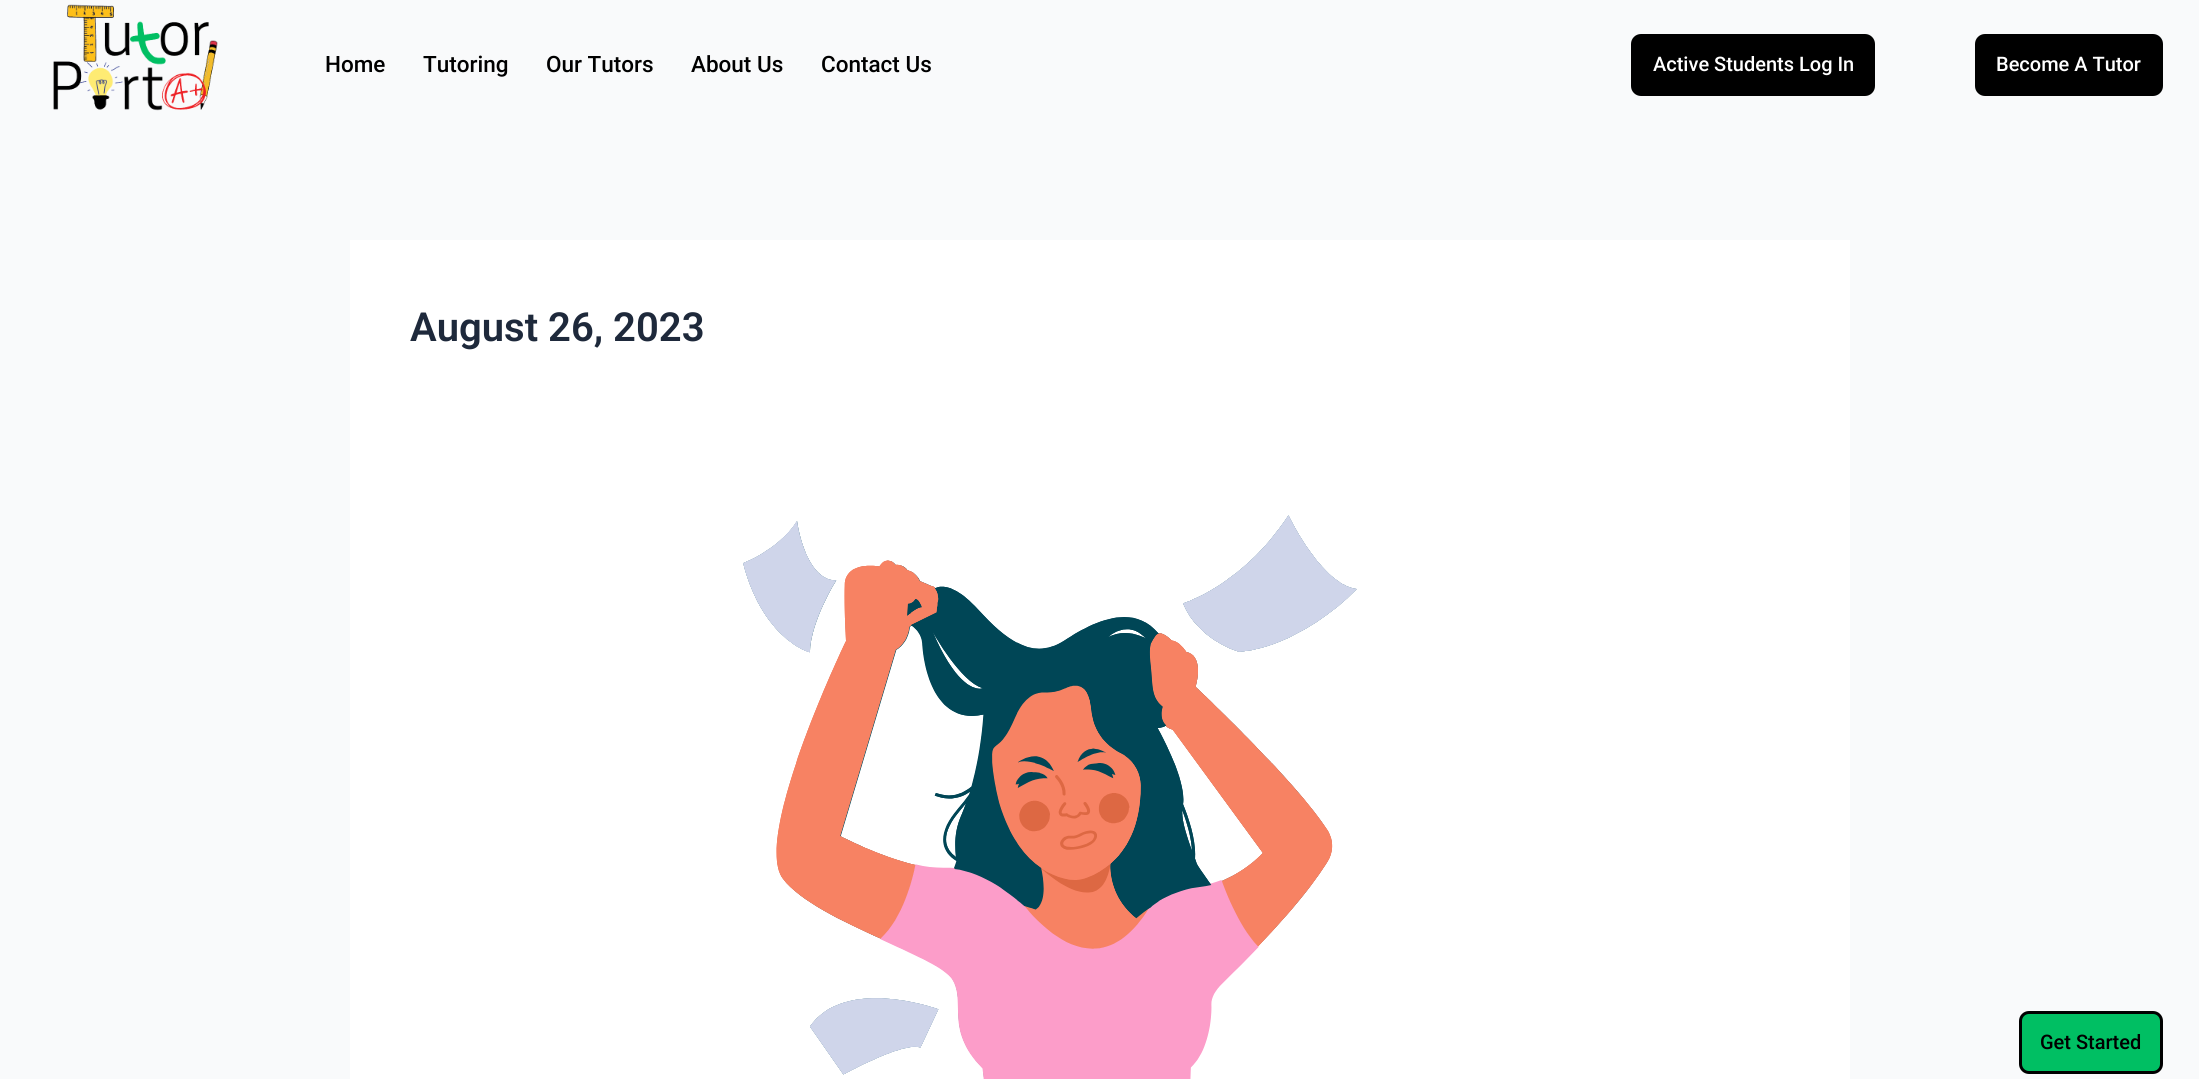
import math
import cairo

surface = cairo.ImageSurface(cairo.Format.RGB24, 2199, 1079)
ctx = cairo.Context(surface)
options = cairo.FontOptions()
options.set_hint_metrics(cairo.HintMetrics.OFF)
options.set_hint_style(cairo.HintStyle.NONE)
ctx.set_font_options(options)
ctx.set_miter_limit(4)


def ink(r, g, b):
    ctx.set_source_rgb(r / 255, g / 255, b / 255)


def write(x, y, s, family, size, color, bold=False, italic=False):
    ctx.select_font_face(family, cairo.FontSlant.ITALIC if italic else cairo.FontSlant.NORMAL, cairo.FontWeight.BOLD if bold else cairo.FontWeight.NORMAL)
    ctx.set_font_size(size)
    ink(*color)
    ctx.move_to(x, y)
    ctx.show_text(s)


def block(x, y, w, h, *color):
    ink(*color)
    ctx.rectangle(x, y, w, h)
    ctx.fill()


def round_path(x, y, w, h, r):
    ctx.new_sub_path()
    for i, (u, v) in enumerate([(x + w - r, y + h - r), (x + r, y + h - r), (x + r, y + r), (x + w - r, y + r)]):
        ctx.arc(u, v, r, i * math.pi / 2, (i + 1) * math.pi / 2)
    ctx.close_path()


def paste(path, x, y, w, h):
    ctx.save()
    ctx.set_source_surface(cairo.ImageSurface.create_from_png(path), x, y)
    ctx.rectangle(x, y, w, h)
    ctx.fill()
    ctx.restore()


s1 = dict(family="Roboto Medium", size=22.5, color=(0, 0, 0))
s2 = dict(family="Roboto Medium", size=20, color=(255, 255, 255))
s3 = dict(family="Roboto SemiBold", size=40, color=(30, 41, 59))
s4 = dict(family="Roboto Medium", size=20, color=(0, 0, 0))

ink(249, 250, 251)
ctx.paint()
paste("pic1.png", 53, 4, 165, 107)
write(325, 72, "Home", **s1)
write(423, 72, "Tutoring", **s1)
write(546, 72, "Our Tutors", **s1)
write(691, 72, "About Us", **s1)
write(821, 72, "Contact Us", **s1)
round_path(1632.5, 35.5, 241, 59, 8.5)
ctx.fill_preserve()
ctx.set_line_width(3)
ctx.stroke()
write(1653, 71, "Active Students Log In", **s2)
ink(0, 0, 0)
round_path(1976.5, 35.5, 185, 59, 8.5)
ctx.fill_preserve()
ctx.stroke()
write(1996, 71, "Become A Tutor", **s2)
block(350, 240, 1500, 839, 255, 255, 255)
write(410, 341, "August 26, 2023", **s3)
paste("pic2.png", 743, 515, 614, 564)
ink(0, 191, 99)
round_path(2020.5, 1012.5, 141, 60, 8.5)
ctx.fill_preserve()
ink(0, 0, 0)
ctx.stroke()
write(2040, 1049, "Get Started", **s4)
surface.write_to_png("screenshot.png")
